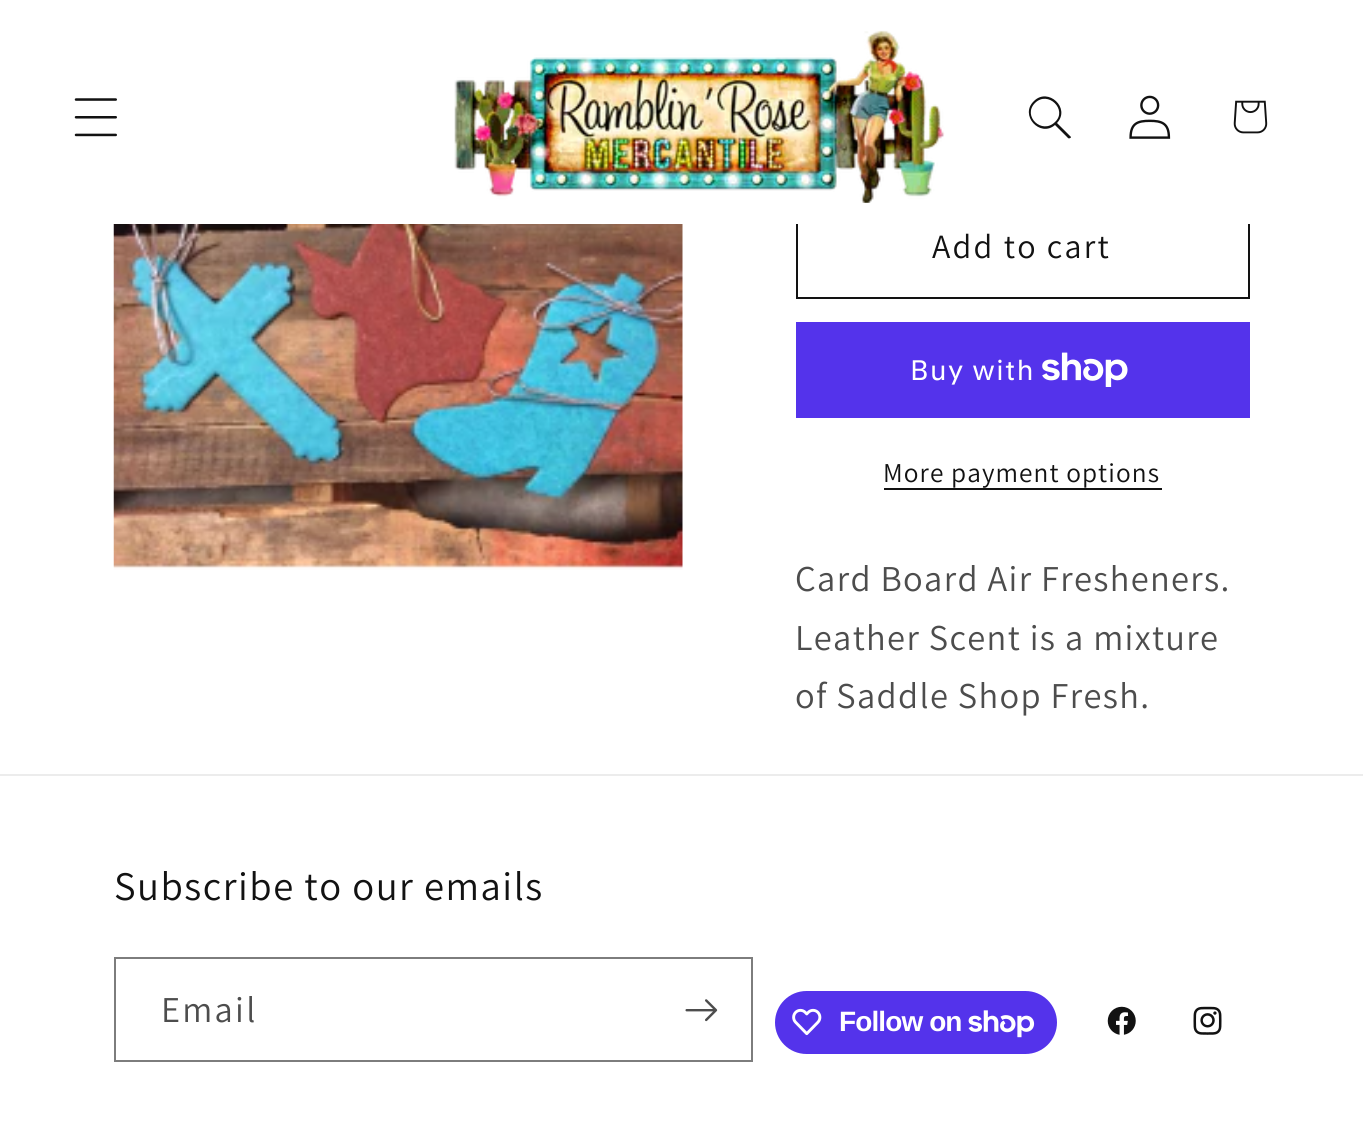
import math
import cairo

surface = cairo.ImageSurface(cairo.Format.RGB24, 1363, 1143)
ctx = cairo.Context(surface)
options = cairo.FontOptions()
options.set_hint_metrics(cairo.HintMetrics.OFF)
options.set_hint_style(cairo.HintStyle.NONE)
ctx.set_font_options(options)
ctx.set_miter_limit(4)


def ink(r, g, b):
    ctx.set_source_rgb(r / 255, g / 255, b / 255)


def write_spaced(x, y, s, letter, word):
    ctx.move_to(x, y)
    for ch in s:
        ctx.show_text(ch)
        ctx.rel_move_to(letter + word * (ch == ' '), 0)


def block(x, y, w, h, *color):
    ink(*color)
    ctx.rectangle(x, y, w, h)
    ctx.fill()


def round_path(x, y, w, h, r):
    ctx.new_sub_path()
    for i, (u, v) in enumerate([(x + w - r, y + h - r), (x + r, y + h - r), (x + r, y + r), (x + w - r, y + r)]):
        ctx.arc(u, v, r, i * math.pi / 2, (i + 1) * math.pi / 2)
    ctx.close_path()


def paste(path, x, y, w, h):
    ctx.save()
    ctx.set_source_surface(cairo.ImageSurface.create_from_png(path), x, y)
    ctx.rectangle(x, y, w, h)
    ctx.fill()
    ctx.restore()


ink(255, 255, 255)
ctx.paint()
ctx.rectangle(797, 194, 452, 104)
ink(18, 18, 18)
ctx.stroke()
block(796, 193, 454, 31, 255, 255, 255)
paste("pic1.png", 74, 98, 43, 39)
paste("pic2.png", 454, 30, 491, 173)
ink(18, 18, 18)
ctx.set_fill_rule(cairo.FillRule.EVEN_ODD)
ctx.new_path()
ctx.move_to(1055, 122)
ctx.curve_to(1042, 135, 1022, 116, 1035, 103)
ctx.curve_to(1048, 90, 1068, 110, 1055, 122)
ctx.move_to(1055, 125)
ctx.curve_to(1040, 138, 1019, 115, 1034, 101)
ctx.curve_to(1048, 87, 1071, 108, 1057, 123)
ctx.line_to(1071, 137)
ctx.curve_to(1071, 138, 1069, 139, 1068, 138)
ctx.close_path()
ctx.fill()
paste("pic3.png", 1129, 95, 42, 44)
paste("pic4.png", 1233, 100, 35, 34)
paste("pic5.png", 113, 224, 570, 346)
ctx.select_font_face("Assistant")
ctx.set_font_size(34)
write_spaced(932, 258, "Add to cart", 2.25, 0)
block(796, 322, 454, 96, 84, 51, 235)
ctx.select_font_face("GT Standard")
ctx.set_font_size(28)
ink(255, 255, 255)
write_spaced(910, 380, "Buy with", 1.35, 0)
paste("pic6.png", 1042, 352, 86, 35)
ctx.select_font_face("Assistant")
ctx.set_font_size(27.25)
ink(18, 18, 18)
write_spaced(883, 482, "More payment options", 1.1, 0)
block(884, 488, 278, 2, 18, 18, 18)
ctx.set_font_size(36.4)
ink(77, 77, 77)
write_spaced(795, 591, "Card Board Air Fresheners.", 1.35, 0)
write_spaced(795, 650, "Leather Scent is a mixture", 1.35, 0)
write_spaced(795, 708, "of Saddle Shop Fresh.", 1.35, 0)
block(0, 774, 1363, 2, 236, 236, 236)
ctx.set_font_size(40.6)
ink(18, 18, 18)
write_spaced(114, 900, "Subscribe to our emails", 1.5, 0)
ctx.rectangle(115, 958, 637, 103)
ink(125, 125, 125)
ctx.stroke()
ctx.set_font_size(36.4)
ink(77, 77, 77)
write_spaced(161, 1022, "Email", 2.25, 0)
paste("pic7.png", 685, 999, 33, 23)
ink(84, 51, 235)
round_path(775, 991, 282, 63, 31.5)
ctx.fill()
paste("pic8.png", 792, 1008, 30, 28)
ctx.select_font_face("Liberation Sans", cairo.FontSlant.NORMAL, cairo.FontWeight.BOLD)
ctx.set_font_size(28)
ink(255, 255, 255)
write_spaced(839, 1031, "Follow on", -0.9, 0)
paste("pic9.png", 968, 1010, 67, 28)
paste("pic10.png", 1107, 1006, 29, 29)
paste("pic11.png", 1193, 1006, 29, 29)
surface.write_to_png("screenshot.png")
